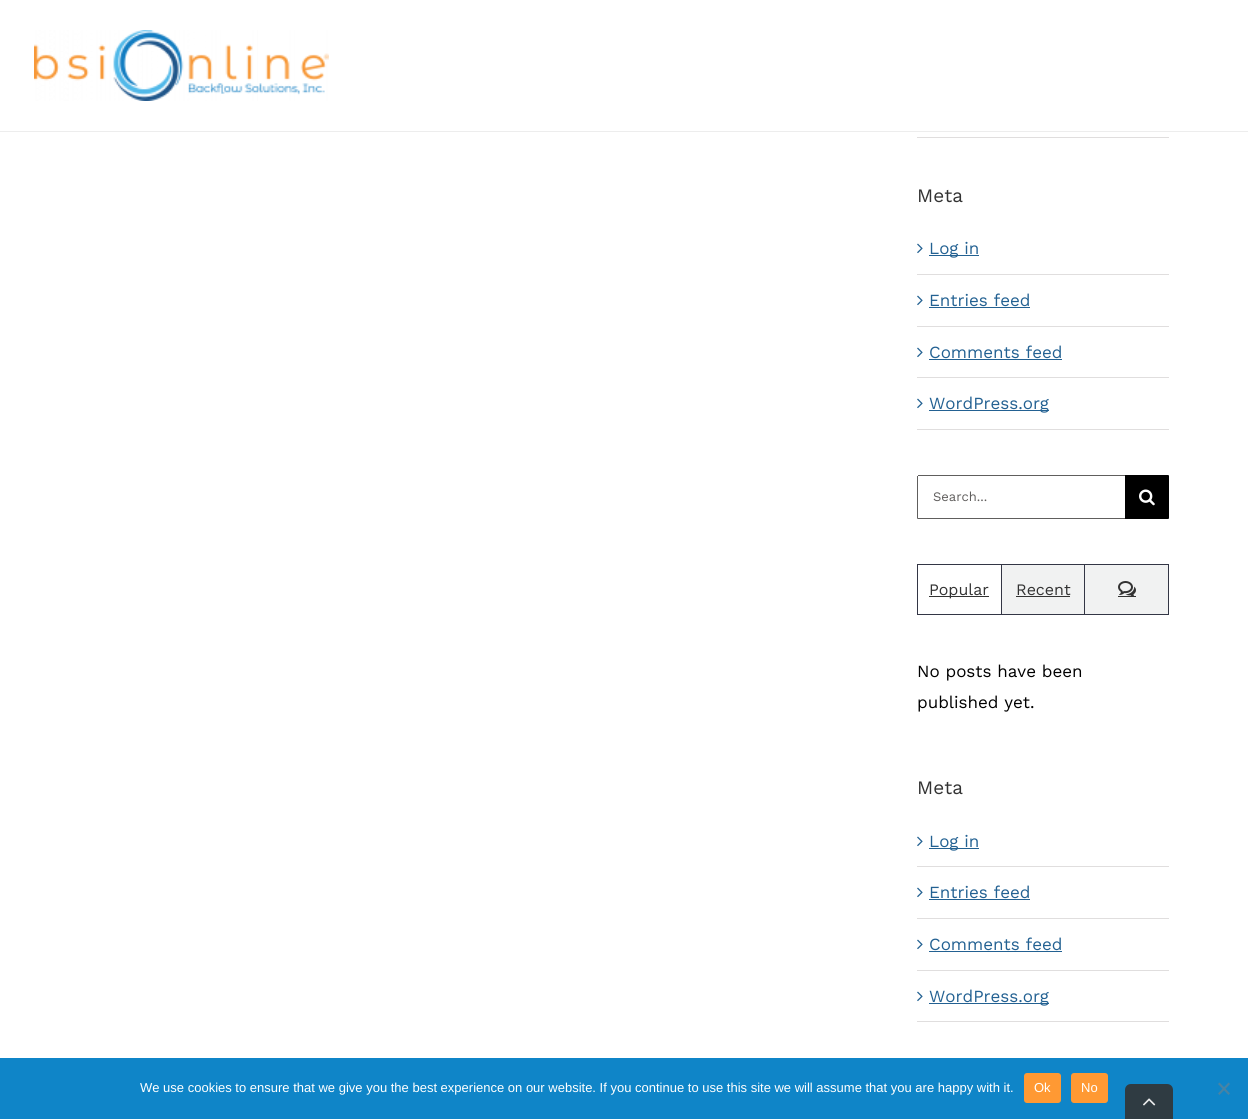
import math
import cairo

surface = cairo.ImageSurface(cairo.Format.RGB24, 1248, 1119)
ctx = cairo.Context(surface)
options = cairo.FontOptions()
options.set_hint_metrics(cairo.HintMetrics.OFF)
options.set_hint_style(cairo.HintStyle.NONE)
ctx.set_font_options(options)
ctx.set_miter_limit(4)


def ink(r, g, b):
    ctx.set_source_rgb(r / 255, g / 255, b / 255)


def write(x, y, s, family, size, color, bold=False, italic=False):
    ctx.select_font_face(family, cairo.FontSlant.ITALIC if italic else cairo.FontSlant.NORMAL, cairo.FontWeight.BOLD if bold else cairo.FontWeight.NORMAL)
    ctx.set_font_size(size)
    ink(*color)
    ctx.move_to(x, y)
    ctx.show_text(s)


def block(x, y, w, h, *color):
    ink(*color)
    ctx.rectangle(x, y, w, h)
    ctx.fill()


def round_path(x, y, w, h, r):
    ctx.new_sub_path()
    for i, (u, v) in enumerate([(x + w - r, y + h - r), (x + r, y + h - r), (x + r, y + r), (x + w - r, y + r)]):
        ctx.arc(u, v, r, i * math.pi / 2, (i + 1) * math.pi / 2)
    ctx.close_path()


def paste(path, x, y, w, h):
    ctx.save()
    ctx.set_source_surface(cairo.ImageSurface.create_from_png(path), x, y)
    ctx.rectangle(x, y, w, h)
    ctx.fill()
    ctx.restore()


s1 = dict(family="Work Sans", size=19, color=(51, 51, 51))
s2 = dict(family="Work Sans", size=17, color=(35, 97, 146))
s3 = dict(family="Work Sans", size=13, color=(96, 94, 93))
s4 = dict(family="Work Sans", size=16, color=(51, 51, 51))
s5 = dict(family="Work Sans", size=17, color=(0, 0, 0))
s6 = dict(family="Liberation Sans", size=13, color=(255, 255, 255))

ink(255, 255, 255)
ctx.paint()
block(0, 131, 1248, 1, 237, 237, 237)
paste("pic1.png", 34, 30, 295, 71)
block(917, 137, 252, 1, 224, 222, 222)
write(917, 202, "Meta", **s1)
block(917, 274, 252, 1, 224, 222, 222)
paste("pic2.png", 917, 243, 6, 11)
block(929, 255, 50, 1, 35, 97, 146)
write(929, 254, "Log in", **s2)
block(917, 326, 252, 1, 224, 222, 222)
paste("pic2.png", 917, 295, 6, 11)
write(929, 306, "Entries feed", **s2)
block(929, 307, 101, 1, 35, 97, 146)
block(917, 377, 252, 1, 224, 222, 222)
paste("pic2.png", 917, 347, 6, 11)
write(929, 358, "Comments feed", **s2)
block(929, 359, 133, 1, 35, 97, 146)
block(917, 429, 252, 1, 224, 222, 222)
paste("pic2.png", 917, 398, 6, 11)
block(929, 410, 120, 1, 35, 97, 146)
write(929, 409, "WordPress.org", **s2)
block(918, 475, 207, 1, 96, 94, 93)
block(918, 518, 207, 1, 96, 94, 93)
ctx.new_path()
ctx.move_to(917, 476)
ctx.line_to(918, 476)
ctx.line_to(918, 519)
ctx.curve_to(917.5, 519, 917, 518.5, 917, 518)
ctx.close_path()
ctx.fill()
write(933, 501, "Search...", **s3)
ink(0, 0, 0)
ctx.new_path()
ctx.move_to(1125, 475)
ctx.line_to(1168, 475)
ctx.curve_to(1168.5, 475, 1169, 475.5, 1169, 476)
ctx.line_to(1169, 518)
ctx.curve_to(1169, 518.5, 1168.5, 519, 1168, 519)
ctx.line_to(1125, 519)
ctx.close_path()
ctx.fill()
paste("pic3.png", 1139, 489, 16, 17)
ctx.rectangle(917.5, 564.5, 251, 50)
ink(51, 54, 69)
ctx.set_line_width(1)
ctx.stroke()
block(1001, 565, 1, 49, 51, 54, 69)
block(929, 596, 60, 1, 51, 51, 51)
write(929, 595, "Popular", **s4)
block(1084, 565, 1, 49, 51, 54, 69)
block(1002, 565, 82, 49, 241, 242, 242)
write(1016, 595, "Recent", **s4)
block(1016, 596, 54, 1, 51, 51, 51)
block(1085, 565, 83, 49, 241, 242, 242)
paste("pic4.png", 1118, 581, 18, 15)
block(1118, 596, 18, 1, 51, 51, 51)
write(917, 677, "No posts have been", **s5)
write(917, 708, "published yet.", **s5)
write(917, 794, "Meta", **s1)
block(917, 866, 252, 1, 224, 222, 222)
paste("pic2.png", 917, 836, 6, 11)
block(929, 848, 50, 1, 35, 97, 146)
write(929, 847, "Log in", **s2)
block(917, 918, 252, 1, 224, 222, 222)
paste("pic2.png", 917, 887, 6, 11)
write(929, 898, "Entries feed", **s2)
block(929, 899, 101, 1, 35, 97, 146)
block(917, 970, 252, 1, 224, 222, 222)
paste("pic2.png", 917, 939, 6, 11)
write(929, 950, "Comments feed", **s2)
block(929, 951, 133, 1, 35, 97, 146)
block(917, 1021, 252, 1, 224, 222, 222)
paste("pic2.png", 917, 991, 6, 11)
block(929, 1003, 120, 1, 35, 97, 146)
write(929, 1002, "WordPress.org", **s2)
block(0, 1058, 1248, 61, 15, 133, 200)
write(140, 1092, "We use cookies to ensure that we give you the best experience on our website. If you continue to use this site we will assume that you are happy with it.", **s6)
ink(255, 153, 51)
round_path(1024, 1073, 37, 30, 3)
ctx.fill()
write(1034, 1092, "Ok", **s6)
ink(255, 153, 51)
round_path(1071, 1073, 37, 30, 3)
ctx.fill()
write(1081, 1092, "No", **s6)
ink(72, 131, 164)
ctx.new_path()
ctx.move_to(1228.5, 1082.5)
ctx.line_to(1230, 1084)
ctx.line_to(1219.5, 1095)
ctx.line_to(1218, 1093.5)
ctx.close_path()
ctx.fill()
ctx.new_path()
ctx.move_to(1218, 1084)
ctx.line_to(1219.5, 1082.5)
ctx.line_to(1230, 1093.5)
ctx.line_to(1228.5, 1095)
ctx.close_path()
ctx.fill()
ink(47, 59, 66)
ctx.new_path()
ctx.move_to(1131, 1084)
ctx.line_to(1167, 1084)
ctx.curve_to(1170.5, 1084, 1173, 1086.5, 1173, 1090)
ctx.line_to(1173, 1119)
ctx.line_to(1125, 1119)
ctx.line_to(1125, 1090)
ctx.curve_to(1125, 1086.5, 1127.5, 1084, 1131, 1084)
ctx.close_path()
ctx.fill()
paste("pic5.png", 1143, 1098, 13, 8)
surface.write_to_png("screenshot.png")
